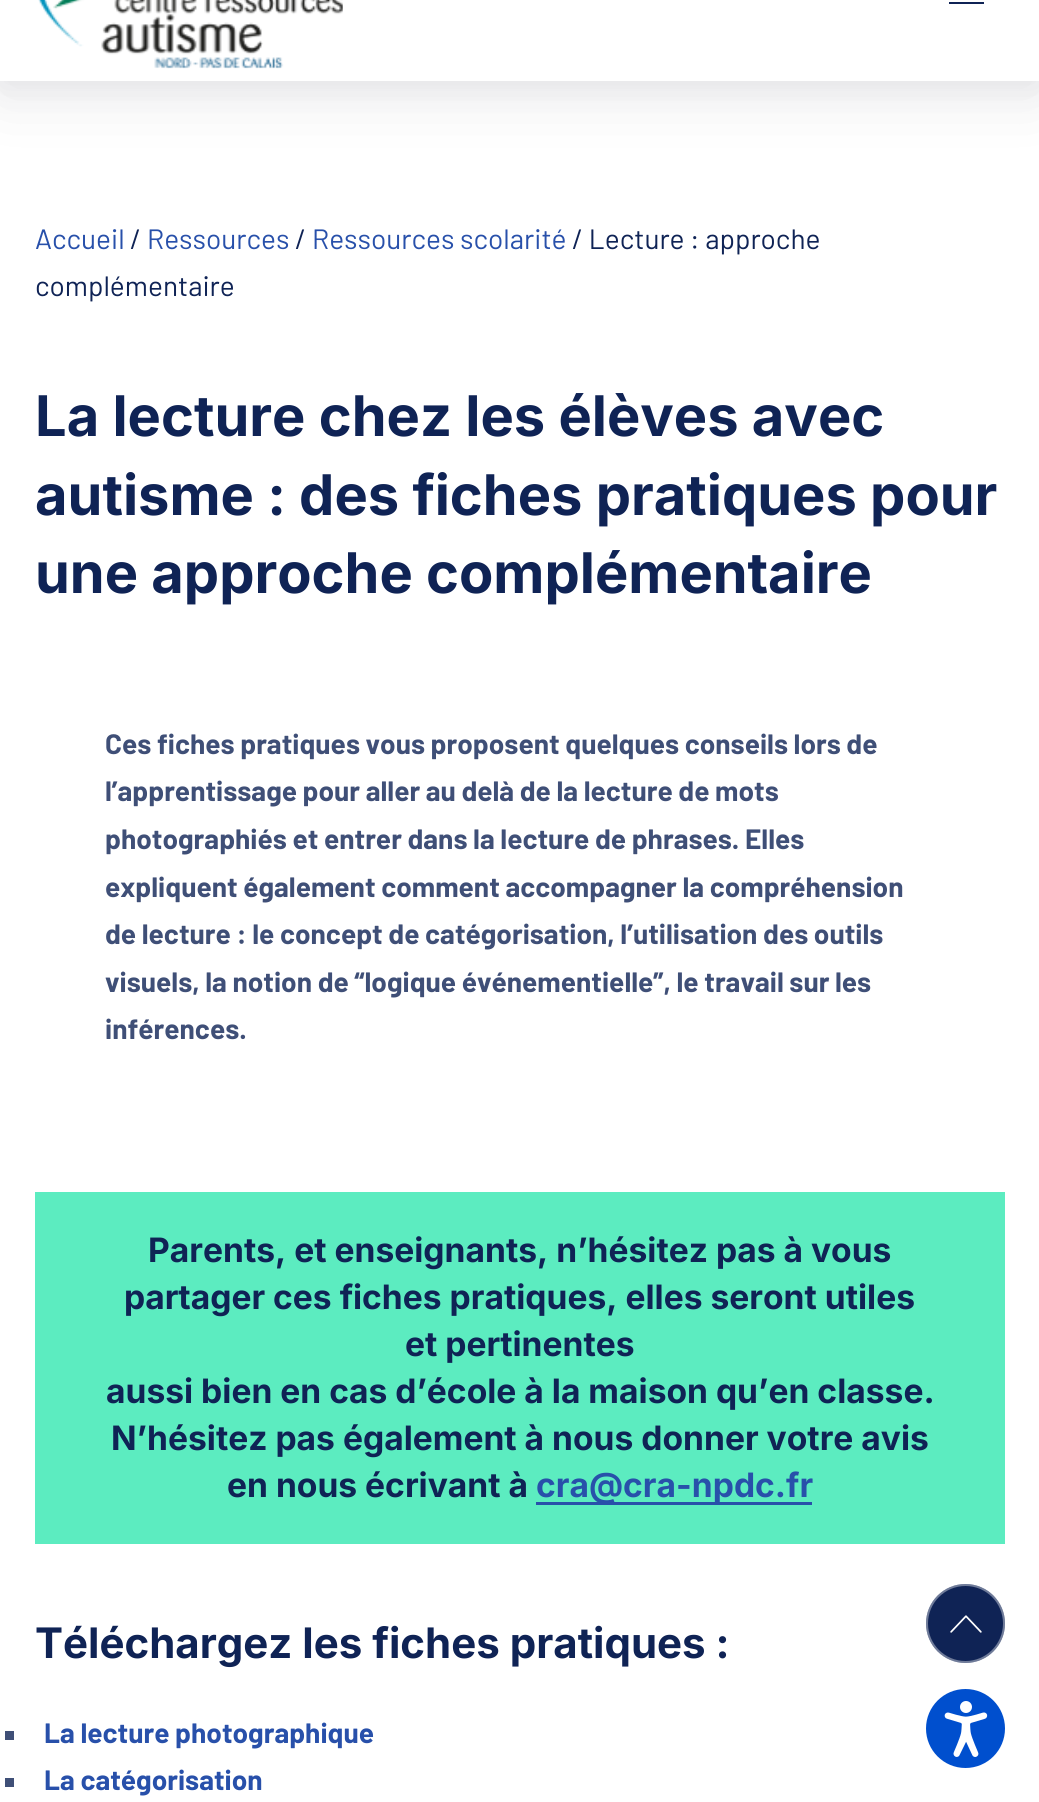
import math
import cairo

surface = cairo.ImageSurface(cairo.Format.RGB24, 1039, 1802)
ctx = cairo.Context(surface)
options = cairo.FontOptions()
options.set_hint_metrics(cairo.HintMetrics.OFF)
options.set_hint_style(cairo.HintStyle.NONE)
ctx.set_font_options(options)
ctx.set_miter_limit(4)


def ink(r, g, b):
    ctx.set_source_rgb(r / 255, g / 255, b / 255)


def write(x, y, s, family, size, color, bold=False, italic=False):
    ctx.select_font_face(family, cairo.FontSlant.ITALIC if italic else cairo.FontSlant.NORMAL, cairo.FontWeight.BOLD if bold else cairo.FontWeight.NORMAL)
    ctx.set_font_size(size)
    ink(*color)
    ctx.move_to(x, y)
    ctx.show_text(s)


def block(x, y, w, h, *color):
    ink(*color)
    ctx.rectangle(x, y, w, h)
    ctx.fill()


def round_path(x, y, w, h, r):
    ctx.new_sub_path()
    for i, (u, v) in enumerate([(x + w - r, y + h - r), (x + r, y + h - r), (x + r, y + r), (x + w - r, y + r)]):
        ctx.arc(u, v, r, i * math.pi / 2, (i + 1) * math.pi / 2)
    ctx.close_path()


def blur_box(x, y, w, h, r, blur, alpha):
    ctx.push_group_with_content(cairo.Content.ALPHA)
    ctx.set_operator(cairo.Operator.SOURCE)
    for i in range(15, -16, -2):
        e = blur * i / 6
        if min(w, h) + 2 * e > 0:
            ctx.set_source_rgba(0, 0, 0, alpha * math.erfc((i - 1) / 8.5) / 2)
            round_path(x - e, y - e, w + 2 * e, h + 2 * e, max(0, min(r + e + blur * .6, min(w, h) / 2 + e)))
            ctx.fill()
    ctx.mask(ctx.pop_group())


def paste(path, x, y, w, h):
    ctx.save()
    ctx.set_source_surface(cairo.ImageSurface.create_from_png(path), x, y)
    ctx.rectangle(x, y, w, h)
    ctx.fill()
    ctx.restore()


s1 = dict(family="Barlow", size=28, color=(40, 80, 170))
s2 = dict(family="Barlow", size=28, color=(15, 35, 85))
s3 = dict(family="Inter", size=56, color=(15, 35, 85), bold=True)
s4 = dict(family="Barlow", size=28, color=(63, 79, 119), bold=True)
s5 = dict(family="Inter", size=33.6, color=(15, 35, 85), bold=True)
s6 = dict(family="Inter", size=33.6, color=(40, 80, 170), bold=True)
s7 = dict(family="Inter", size=42, color=(15, 35, 85), bold=True)
s8 = dict(family="Barlow", size=28, color=(40, 80, 170), bold=True)

ink(255, 255, 255)
ctx.paint()
ink(0, 10, 20)
blur_box(0, -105, 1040, 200, 0, 35, 0.08)
blur_box(0, -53, 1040, 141, 0, 17.5, 0.06)
block(0, 0, 1039, 81, 255, 255, 255)
paste("pic1.png", 38, 0, 305, 69)
block(949, 2, 35, 2, 15, 35, 85)
write(35, 249, "Accueil", **s1)
write(130, 249, "/", **s2)
write(147, 249, "Ressources", **s1)
write(295, 249, "/", **s2)
write(312, 249, "Ressources scolarité", **s1)
write(572, 249, "/ Lecture : approche", **s2)
write(35, 296, "complémentaire", **s2)
write(35, 436, "La lecture chez les élèves avec", **s3)
write(35, 515, "autisme : des fiches pratiques pour", **s3)
write(35, 593, "une approche complémentaire", **s3)
write(105, 754, "Ces fiches pratiques vous proposent quelques conseils lors de", **s4)
write(105, 801, "l’apprentissage pour aller au delà de la lecture de mots", **s4)
write(105, 849, "photographiés et entrer dans la lecture de phrases. Elles", **s4)
write(105, 897, "expliquent également comment accompagner la compréhension", **s4)
write(105, 944, "de lecture : le concept de catégorisation, l’utilisation des outils", **s4)
write(105, 992, "visuels, la notion de “logique événementielle”, le travail sur les", **s4)
write(105, 1039, "inférences.", **s4)
block(35, 1192, 970, 352, 92, 236, 192)
write(148, 1262, "Parents, et enseignants, n’hésitez pas à vous", **s5)
write(124, 1309, "partager ces fiches pratiques, elles seront utiles", **s5)
write(405, 1356, "et pertinentes", **s5)
write(106, 1403, "aussi bien en cas d’école à la maison qu’en classe.", **s5)
write(111, 1450, "N’hésitez pas également à nous donner votre avis", **s5)
write(227, 1497, "en nous écrivant à", **s5)
block(536, 1502, 276, 3, 40, 80, 170)
write(536, 1497, "cra@cra-npdc.fr", **s6)
write(35, 1658, "Téléchargez les fiches pratiques :", **s7)
block(5, 1731, 9, 9, 63, 79, 119)
write(44, 1743, "La lecture photographique", **s8)
block(5, 1778, 9, 9, 63, 79, 119)
write(44, 1790, "La catégorisation", **s8)
ink(15, 35, 85)
ctx.new_path()
ctx.arc(965.5, 1623.5, 39.5, 0, 2 * math.pi)
ctx.fill()
ctx.arc(965.5, 1623.5, 38.5, 0, 2 * math.pi)
ctx.set_source_rgba(1, 1, 1, 0.4)
ctx.stroke()
paste("pic2.png", 950, 1615, 32, 18)
ink(0, 79, 206)
ctx.arc(965.5, 1728.5, 39.5, 0, 2 * math.pi)
ctx.fill()
paste("pic3.png", 944, 1701, 44, 56)
surface.write_to_png("screenshot.png")
